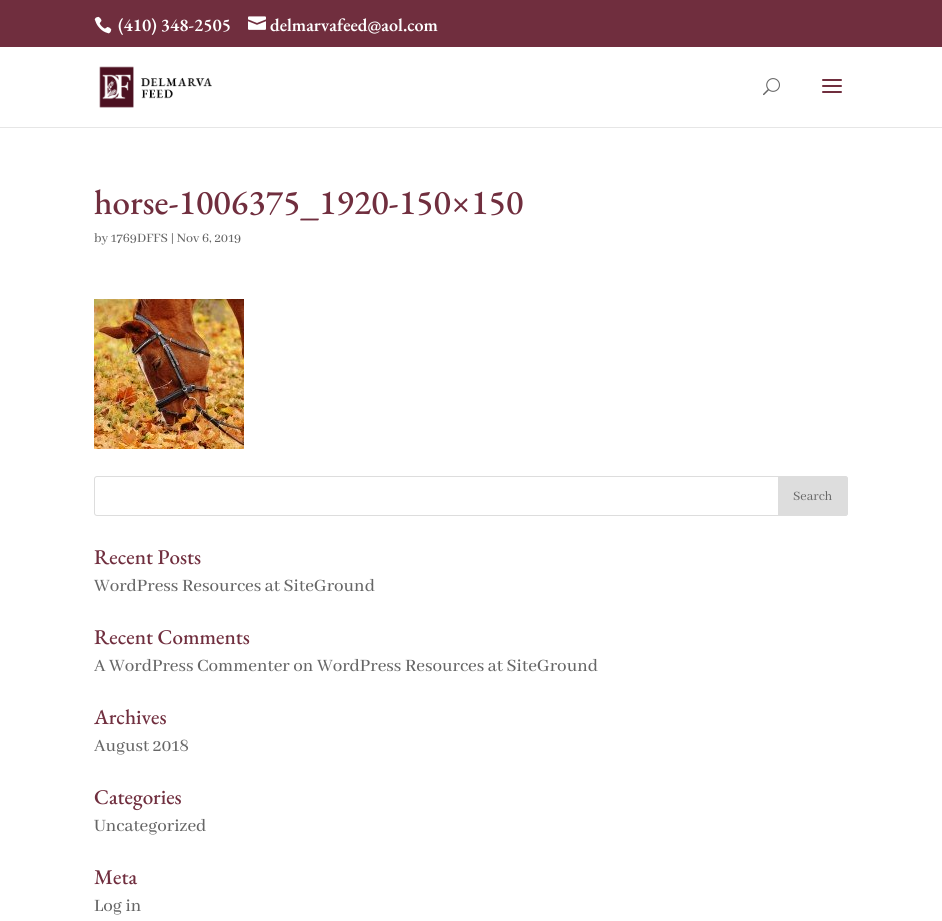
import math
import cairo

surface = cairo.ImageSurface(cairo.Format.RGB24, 942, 921)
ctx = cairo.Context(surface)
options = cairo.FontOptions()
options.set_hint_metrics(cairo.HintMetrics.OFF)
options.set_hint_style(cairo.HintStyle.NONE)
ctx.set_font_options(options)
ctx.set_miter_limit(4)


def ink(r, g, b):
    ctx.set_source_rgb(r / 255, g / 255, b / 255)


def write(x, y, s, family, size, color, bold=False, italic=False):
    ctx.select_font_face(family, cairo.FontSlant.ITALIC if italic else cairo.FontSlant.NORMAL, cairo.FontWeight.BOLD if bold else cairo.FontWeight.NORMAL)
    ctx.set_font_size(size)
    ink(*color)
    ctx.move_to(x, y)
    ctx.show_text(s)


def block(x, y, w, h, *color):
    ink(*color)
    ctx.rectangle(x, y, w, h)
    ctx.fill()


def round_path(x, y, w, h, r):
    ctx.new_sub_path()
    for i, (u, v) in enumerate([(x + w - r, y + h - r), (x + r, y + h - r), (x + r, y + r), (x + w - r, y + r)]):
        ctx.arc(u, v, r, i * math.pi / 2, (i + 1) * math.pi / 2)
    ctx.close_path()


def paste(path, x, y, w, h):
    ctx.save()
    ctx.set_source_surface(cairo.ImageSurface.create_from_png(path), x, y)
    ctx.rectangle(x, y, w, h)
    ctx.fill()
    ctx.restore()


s1 = dict(family="EB Garamond SemiBold", size=18, color=(255, 255, 255))
s2 = dict(family="EB Garamond Medium", size=35, color=(112, 46, 62))
s3 = dict(family="Abhaya Libre Medium Medium", size=14, color=(102, 102, 102))
s4 = dict(family="Abhaya Libre", size=14, color=(102, 102, 102))
s5 = dict(family="EB Garamond Medium", size=21, color=(112, 46, 62))
s6 = dict(family="Abhaya Libre Medium Medium", size=19, color=(102, 102, 102))

ink(255, 255, 255)
ctx.paint()
block(0, 0, 942, 47, 112, 46, 62)
paste("pic1.png", 94, 16, 18, 18)
write(118, 31, "(410) 348-2505", **s1)
paste("pic2.png", 248, 16, 18, 14)
write(270, 31, "delmarvafeed@aol.com", **s1)
block(0, 127, 942, 1, 230, 230, 230)
paste("pic3.png", 99, 66, 113, 42)
paste("pic4.png", 763, 78, 17, 18)
paste("pic5.png", 822, 79, 20, 14)
write(94, 214, "horse-1006375_1920-150×150", **s2)
write(94, 242, "by 1769DFFS | Nov 6, 2019", **s3)
paste("pic6.png", 94, 299, 150, 150)
round_path(94.5, 476.5, 753, 39, 2.5)
ink(221, 221, 221)
ctx.set_line_width(1)
ctx.stroke()
ctx.new_path()
ctx.move_to(778.5, 476.5)
ctx.line_to(845, 476.5)
ctx.curve_to(846.5, 476.5, 847.5, 477.5, 847.5, 479)
ctx.line_to(847.5, 513)
ctx.curve_to(847.5, 514.5, 846.5, 515.5, 845, 515.5)
ctx.line_to(778.5, 515.5)
ctx.close_path()
ctx.fill_preserve()
ctx.stroke()
write(793, 500, "Search", **s4)
write(94, 564, "Recent Posts", **s5)
write(94, 591, "WordPress Resources at SiteGround", **s6)
write(94, 644, "Recent Comments", **s5)
write(94, 671, "A WordPress Commenter on WordPress Resources at SiteGround", **s6)
write(94, 724, "Archives", **s5)
write(94, 751, "August 2018", **s6)
write(94, 804, "Categories", **s5)
write(94, 831, "Uncategorized", **s6)
write(94, 884, "Meta", **s5)
write(94, 911, "Log in", **s6)
surface.write_to_png("screenshot.png")
